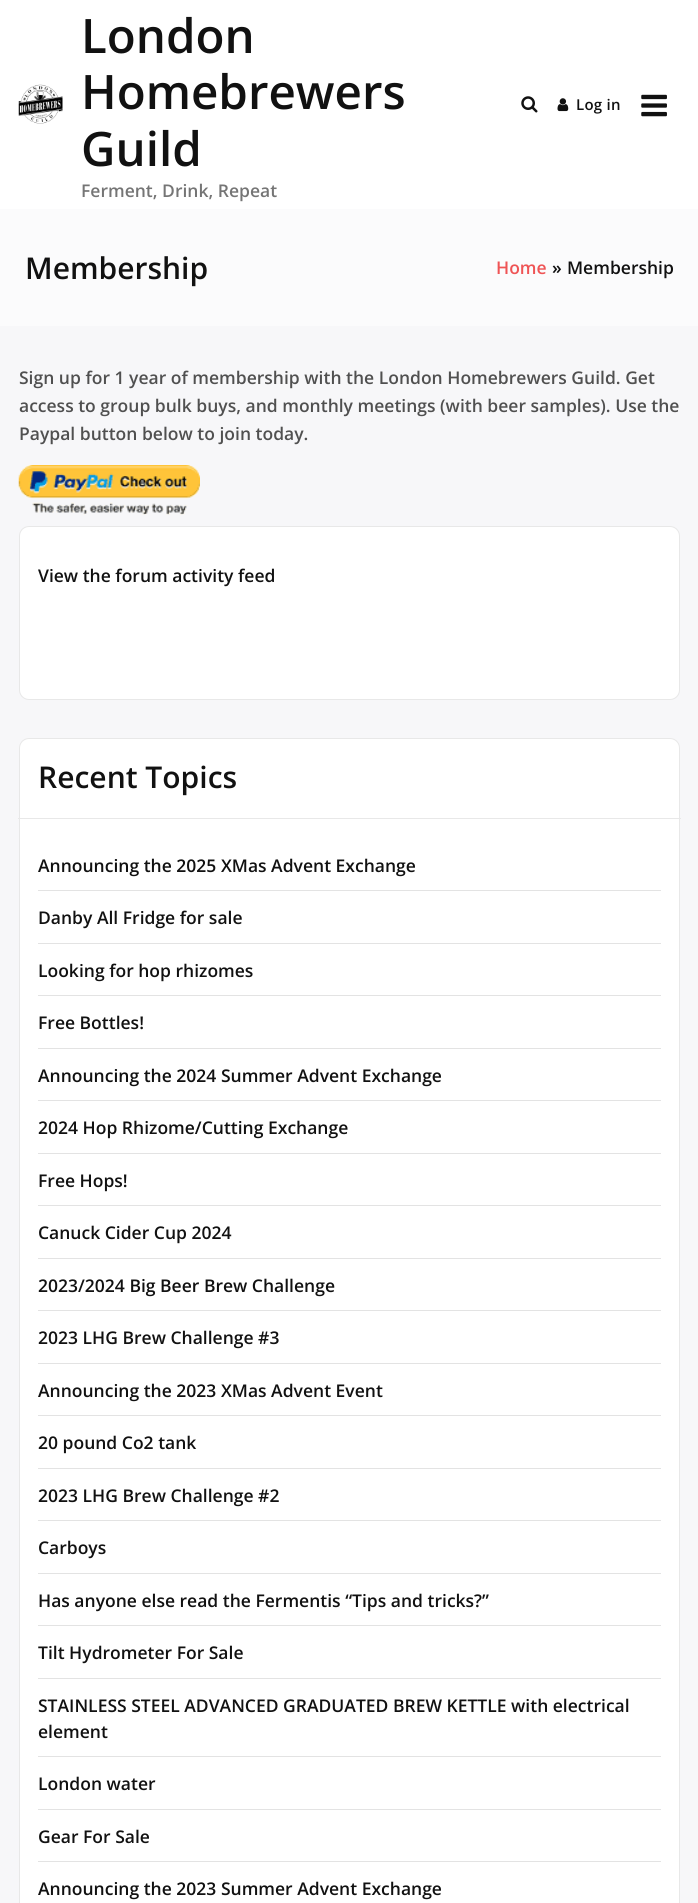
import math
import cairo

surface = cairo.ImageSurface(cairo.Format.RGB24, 698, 1903)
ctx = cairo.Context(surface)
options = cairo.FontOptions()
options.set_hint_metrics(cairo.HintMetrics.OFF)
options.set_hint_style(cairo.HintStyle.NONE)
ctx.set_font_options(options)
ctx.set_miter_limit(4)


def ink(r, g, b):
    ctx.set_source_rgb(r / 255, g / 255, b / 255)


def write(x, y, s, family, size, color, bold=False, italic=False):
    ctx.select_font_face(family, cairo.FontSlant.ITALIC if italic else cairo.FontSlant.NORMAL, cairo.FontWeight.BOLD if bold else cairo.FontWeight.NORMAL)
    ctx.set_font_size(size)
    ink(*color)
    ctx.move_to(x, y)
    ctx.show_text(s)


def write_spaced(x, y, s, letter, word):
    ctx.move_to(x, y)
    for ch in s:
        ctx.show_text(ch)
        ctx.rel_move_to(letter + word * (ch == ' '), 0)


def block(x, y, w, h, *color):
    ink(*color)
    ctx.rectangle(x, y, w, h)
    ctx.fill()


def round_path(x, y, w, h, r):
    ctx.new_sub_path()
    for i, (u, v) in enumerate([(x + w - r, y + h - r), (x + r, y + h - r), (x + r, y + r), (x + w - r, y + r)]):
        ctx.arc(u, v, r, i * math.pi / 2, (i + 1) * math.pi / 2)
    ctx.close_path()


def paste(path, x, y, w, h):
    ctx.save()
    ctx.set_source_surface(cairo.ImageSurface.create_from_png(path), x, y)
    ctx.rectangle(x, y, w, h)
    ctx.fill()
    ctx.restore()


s1 = dict(family="Open Sans SemiBold", size=47.5, color=(17, 17, 17))
s2 = dict(family="Open Sans SemiBold", size=17.5, color=(117, 117, 117))
s3 = dict(family="Open Sans SemiBold", size=30, color=(17, 17, 17))
s4 = dict(family="Open Sans SemiBold", size=17.5, color=(239, 84, 85))
s5 = dict(family="Open Sans SemiBold", size=17.5, color=(17, 17, 17))
s6 = dict(family="Open Sans SemiBold", size=17.5, color=(80, 80, 80))

ink(247, 247, 249)
ctx.paint()
block(0, 0, 698, 209, 255, 255, 255)
paste("pic1.png", 18, 84, 45, 40)
write(81, 53, "London", **s1)
write(81, 109, "Homebrewers", **s1)
write(81, 166, "Guild", **s1)
write(81, 197, "Ferment, Drink, Repeat", **s2)
paste("pic2.png", 521, 96, 17, 17)
paste("pic3.png", 557, 98, 12, 14)
ctx.set_font_size(15)
ink(17, 17, 17)
write_spaced(576, 110, "Log in", 0.25, 0)
paste("pic4.png", 641, 94, 26, 23)
block(0, 209, 698, 117, 251, 251, 252)
write(25, 279, "Membership", **s3)
write(496, 274, "Home", **s4)
write(552, 274, "»", **s5)
write(567, 274, "Membership", **s5)
write(19, 384, "Sign up for 1 year of membership with the London Homebrewers Guild. Get", **s6)
write(19, 412, "access to group bulk buys, and monthly meetings (with beer samples). Use the", **s6)
write(19, 440, "Paypal button below to join today.", **s6)
paste("pic5.png", 18, 465, 182, 50)
ink(255, 255, 255)
round_path(19.5, 526.5, 660, 173, 9.5)
ctx.fill_preserve()
ink(232, 232, 232)
ctx.set_line_width(1)
ctx.stroke()
write(38, 582, "View the forum activity feed", **s5)
ink(255, 255, 255)
round_path(19.5, 738.5, 660, 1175, 9.5)
ctx.fill_preserve()
ink(232, 232, 232)
ctx.stroke()
block(18, 818, 663, 1, 232, 232, 232)
write(38, 788, "Recent Topics", **s3)
write(38, 872, "Announcing the 2025 XMas Advent Exchange", **s5)
block(38, 890, 623, 1, 227, 227, 227)
write(38, 924, "Danby All Fridge for sale", **s5)
block(38, 943, 623, 1, 227, 227, 227)
write(38, 977, "Looking for hop rhizomes", **s5)
block(38, 995, 623, 1, 227, 227, 227)
write(38, 1029, "Free Bottles!", **s5)
block(38, 1048, 623, 1, 227, 227, 227)
write(38, 1082, "Announcing the 2024 Summer Advent Exchange", **s5)
block(38, 1100, 623, 1, 227, 227, 227)
write(38, 1134, "2024 Hop Rhizome/Cutting Exchange", **s5)
block(38, 1153, 623, 1, 227, 227, 227)
write(38, 1187, "Free Hops!", **s5)
block(38, 1205, 623, 1, 227, 227, 227)
write(38, 1239, "Canuck Cider Cup 2024", **s5)
block(38, 1258, 623, 1, 227, 227, 227)
write(38, 1292, "2023/2024 Big Beer Brew Challenge", **s5)
block(38, 1310, 623, 1, 227, 227, 227)
write(38, 1344, "2023 LHG Brew Challenge #3", **s5)
block(38, 1363, 623, 1, 227, 227, 227)
write(38, 1397, "Announcing the 2023 XMas Advent Event", **s5)
block(38, 1415, 623, 1, 227, 227, 227)
write(38, 1449, "20 pound Co2 tank", **s5)
block(38, 1468, 623, 1, 227, 227, 227)
write(38, 1502, "2023 LHG Brew Challenge #2", **s5)
block(38, 1520, 623, 1, 227, 227, 227)
write(38, 1554, "Carboys", **s5)
block(38, 1573, 623, 1, 227, 227, 227)
write(38, 1607, "Has anyone else read the Fermentis “Tips and tricks?”", **s5)
block(38, 1625, 623, 1, 227, 227, 227)
write(38, 1659, "Tilt Hydrometer For Sale", **s5)
block(38, 1678, 623, 1, 227, 227, 227)
write(38, 1712, "STAINLESS STEEL ADVANCED GRADUATED BREW KETTLE with electrical", **s5)
write(38, 1738, "element", **s5)
block(38, 1756, 623, 1, 227, 227, 227)
write(38, 1790, "London water", **s5)
block(38, 1809, 623, 1, 227, 227, 227)
write(38, 1843, "Gear For Sale", **s5)
block(38, 1861, 623, 1, 227, 227, 227)
write(38, 1895, "Announcing the 2023 Summer Advent Exchange", **s5)
surface.write_to_png("screenshot.png")
